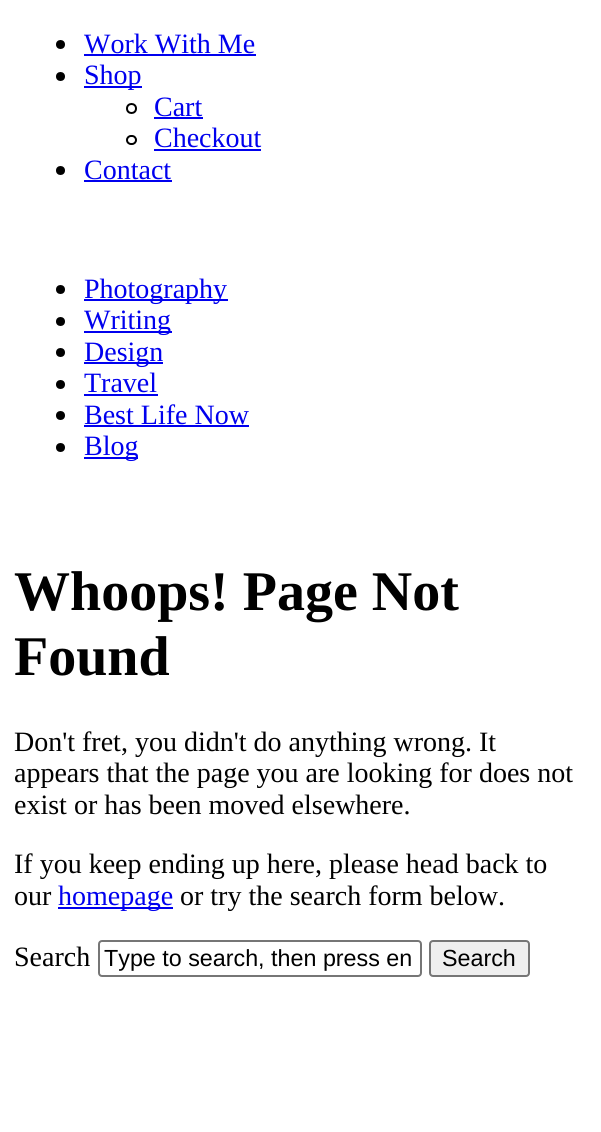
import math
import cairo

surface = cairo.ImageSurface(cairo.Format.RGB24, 601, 1132)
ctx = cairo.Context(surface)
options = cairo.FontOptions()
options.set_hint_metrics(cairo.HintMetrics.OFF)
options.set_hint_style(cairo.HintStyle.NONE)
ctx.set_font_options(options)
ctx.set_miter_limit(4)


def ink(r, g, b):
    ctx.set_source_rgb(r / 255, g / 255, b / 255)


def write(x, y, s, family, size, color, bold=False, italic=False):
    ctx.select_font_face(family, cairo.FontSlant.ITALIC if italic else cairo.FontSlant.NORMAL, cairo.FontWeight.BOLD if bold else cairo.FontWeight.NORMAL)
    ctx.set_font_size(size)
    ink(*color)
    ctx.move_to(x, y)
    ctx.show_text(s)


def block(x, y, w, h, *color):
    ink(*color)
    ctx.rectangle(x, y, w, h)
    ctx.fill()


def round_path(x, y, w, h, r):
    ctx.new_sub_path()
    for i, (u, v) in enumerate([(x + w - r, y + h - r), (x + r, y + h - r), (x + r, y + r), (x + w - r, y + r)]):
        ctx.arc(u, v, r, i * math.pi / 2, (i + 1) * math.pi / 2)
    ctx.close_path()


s1 = dict(family="Liberation Serif", size=28, color=(0, 0, 238))
s2 = dict(family="Liberation Serif", size=56, color=(0, 0, 0), bold=True)
s3 = dict(family="Liberation Serif", size=28, color=(0, 0, 0))
s4 = dict(family="Liberation Sans", size=23.3, color=(0, 0, 0))

ink(255, 255, 255)
ctx.paint()
ink(0, 0, 0)
ctx.arc(60.5, 44.5, 4.5, 0, 2 * math.pi)
ctx.fill()
write(84, 53, "Work With Me", **s1)
block(84, 54, 172, 2, 0, 0, 238)
ink(0, 0, 0)
ctx.new_path()
ctx.arc(60.5, 76.5, 4.5, 0, 2 * math.pi)
ctx.fill()
block(84, 86, 58, 2, 0, 0, 238)
write(84, 84, "Shop", **s1)
ctx.new_path()
ctx.arc(131.5, 108.5, 4.5, 0, 2 * math.pi)
ink(0, 0, 0)
ctx.stroke()
write(154, 116, "Cart", **s1)
block(154, 117, 49, 2, 0, 0, 238)
round_path(127, 136, 9, 8, 4)
ink(0, 0, 0)
ctx.stroke()
write(154, 147, "Checkout", **s1)
block(154, 149, 107, 2, 0, 0, 238)
ink(0, 0, 0)
ctx.new_path()
ctx.arc(60.5, 170.5, 4.5, 0, 2 * math.pi)
ctx.fill()
write(84, 179, "Contact", **s1)
block(84, 180, 88, 2, 0, 0, 238)
ink(0, 0, 0)
ctx.new_path()
ctx.arc(60.5, 289.5, 4.5, 0, 2 * math.pi)
ctx.fill()
block(84, 299, 144, 2, 0, 0, 238)
write(84, 298, "Photography", **s1)
ink(0, 0, 0)
ctx.new_path()
ctx.arc(60.5, 321.5, 4.5, 0, 2 * math.pi)
ctx.fill()
block(84, 331, 88, 2, 0, 0, 238)
write(84, 329, "Writing", **s1)
ink(0, 0, 0)
ctx.new_path()
ctx.arc(60.5, 352.5, 4.5, 0, 2 * math.pi)
ctx.fill()
block(84, 362, 79, 2, 0, 0, 238)
write(84, 361, "Design", **s1)
ink(0, 0, 0)
ctx.new_path()
ctx.arc(60.5, 384.5, 4.5, 0, 2 * math.pi)
ctx.fill()
write(84, 392, "Travel", **s1)
block(84, 394, 74, 2, 0, 0, 238)
ink(0, 0, 0)
ctx.new_path()
ctx.arc(60.5, 415.5, 4.5, 0, 2 * math.pi)
ctx.fill()
write(84, 424, "Best Life Now", **s1)
block(84, 425, 165, 2, 0, 0, 238)
ink(0, 0, 0)
ctx.new_path()
ctx.arc(60.5, 447.5, 4.5, 0, 2 * math.pi)
ctx.fill()
block(84, 457, 54, 2, 0, 0, 238)
write(84, 455, "Blog", **s1)
write(14, 610, "Whoops! Page Not", **s2)
write(14, 675, "Found", **s2)
write(14, 751, "Don't fret, you didn't do anything wrong. It", **s3)
write(14, 782, "appears that the page you are looking for does not", **s3)
write(14, 814, "exist or has been moved elsewhere.", **s3)
write(14, 873, "If you keep ending up here, please head back to", **s3)
write(14, 905, "our", **s3)
block(58, 907, 115, 2, 0, 0, 238)
write(58, 905, "homepage", **s1)
write(180, 905, "or try the search form below.", **s3)
write(14, 966, "Search", **s3)
round_path(99, 941, 322, 35, 3)
ink(118, 118, 118)
ctx.stroke()
write(104, 966, "Type to search, then press en", **s4)
ink(239, 239, 239)
round_path(430, 941, 99, 35, 3)
ctx.fill_preserve()
ink(118, 118, 118)
ctx.stroke()
write(442, 966, "Search", **s4)
surface.write_to_png("screenshot.png")
